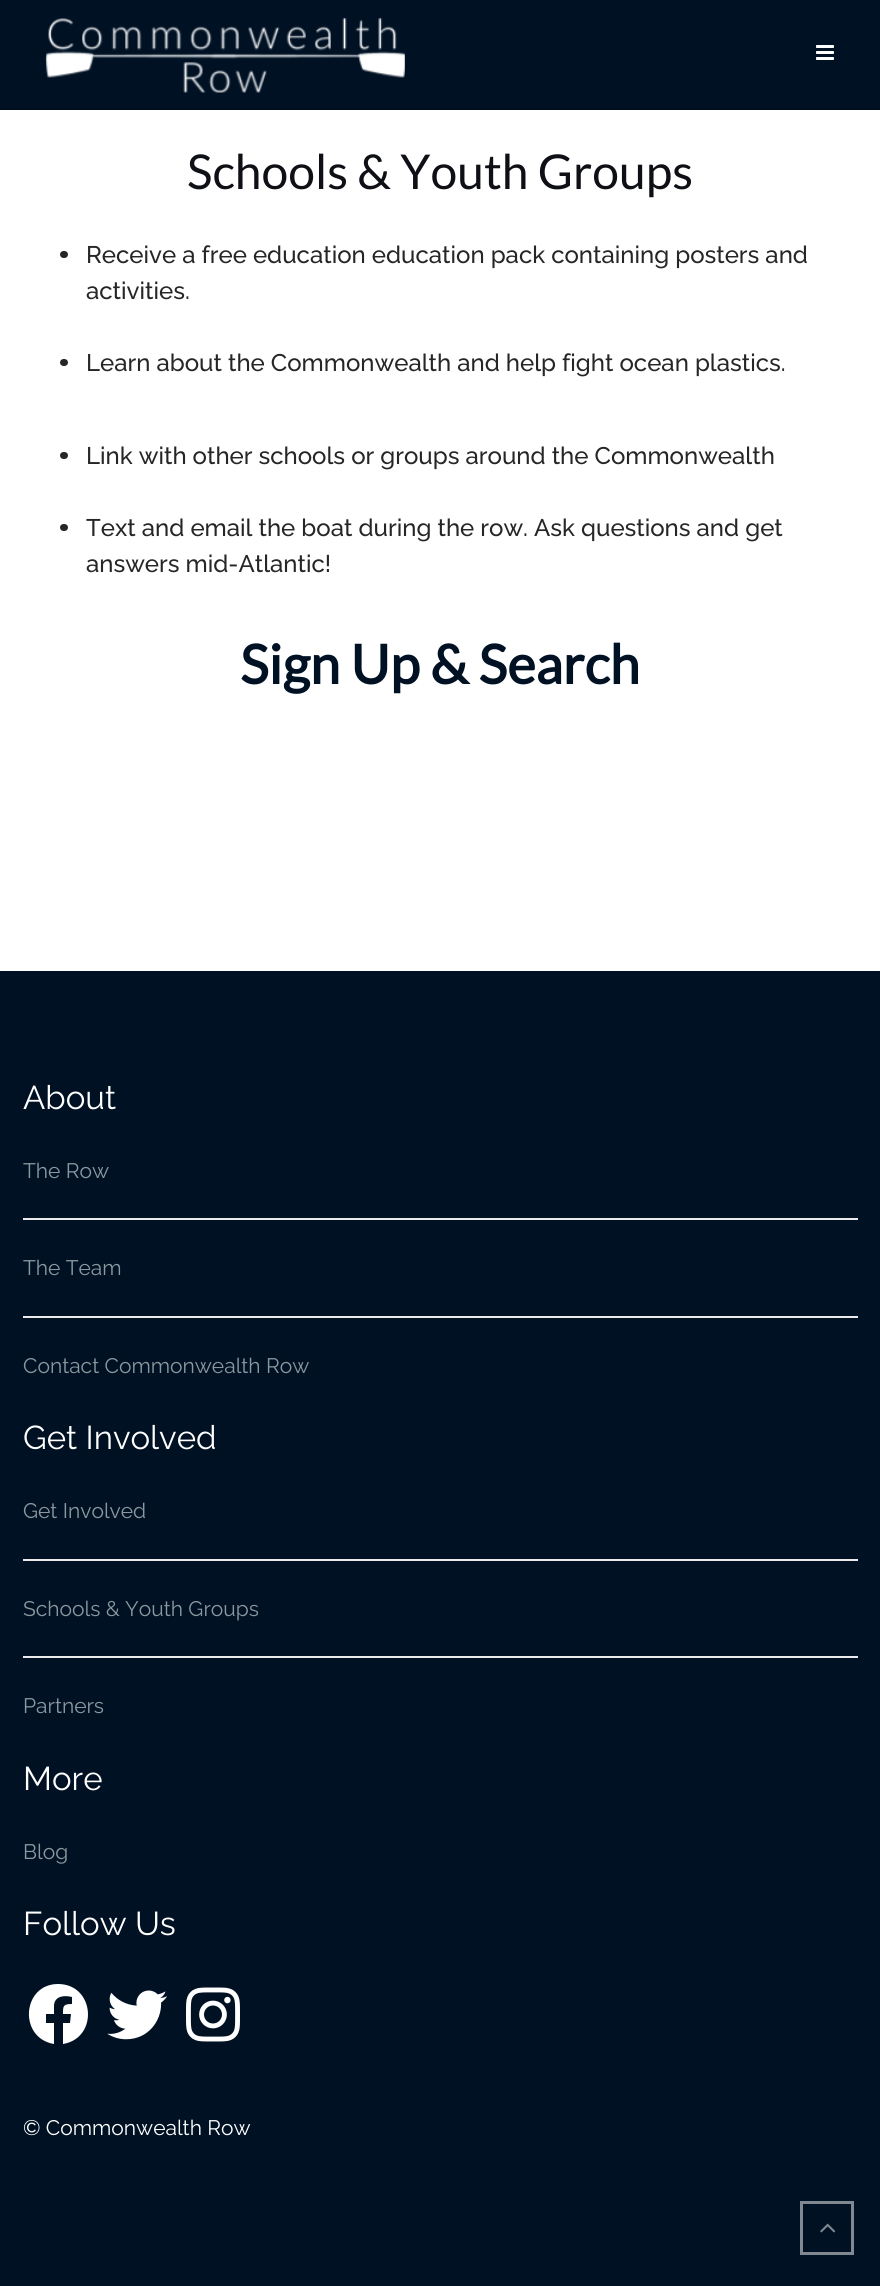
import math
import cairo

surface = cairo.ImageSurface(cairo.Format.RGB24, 880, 2286)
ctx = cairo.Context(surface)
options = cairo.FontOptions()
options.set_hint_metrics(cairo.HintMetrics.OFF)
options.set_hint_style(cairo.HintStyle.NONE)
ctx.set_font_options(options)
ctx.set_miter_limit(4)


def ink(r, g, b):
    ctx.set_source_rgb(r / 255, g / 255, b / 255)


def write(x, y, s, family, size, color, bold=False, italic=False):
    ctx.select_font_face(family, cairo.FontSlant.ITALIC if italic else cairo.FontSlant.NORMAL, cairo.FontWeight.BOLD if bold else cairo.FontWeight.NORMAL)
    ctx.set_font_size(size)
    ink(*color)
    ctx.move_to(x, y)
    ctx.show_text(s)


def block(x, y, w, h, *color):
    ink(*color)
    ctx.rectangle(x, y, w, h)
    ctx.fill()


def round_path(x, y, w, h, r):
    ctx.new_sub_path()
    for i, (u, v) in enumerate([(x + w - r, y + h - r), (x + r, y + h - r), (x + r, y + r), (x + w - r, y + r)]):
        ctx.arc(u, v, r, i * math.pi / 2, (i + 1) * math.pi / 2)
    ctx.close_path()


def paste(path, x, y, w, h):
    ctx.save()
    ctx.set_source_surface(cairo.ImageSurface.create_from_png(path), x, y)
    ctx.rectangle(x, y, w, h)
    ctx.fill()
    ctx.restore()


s1 = dict(family="Lato", size=48, color=(14, 16, 21))
s2 = dict(family="Raleway Medium", size=24, color=(38, 38, 38))
s3 = dict(family="Lato", size=54, color=(0, 17, 36), bold=True)
s4 = dict(family="Raleway", size=33, color=(255, 255, 255))
s5 = dict(family="Raleway", size=21, color=(140, 151, 158))
s6 = dict(family="Raleway", size=21, color=(255, 255, 255))

ink(255, 255, 255)
ctx.paint()
block(0, 0, 880, 108, 0, 17, 36)
block(0, 108, 880, 2, 0, 15, 32)
paste("pic1.png", 45, 17, 360, 76)
paste("pic2.png", 816, 45, 18, 15)
write(187, 189, "Schools & Youth Groups", **s1)
ink(38, 38, 38)
round_path(60, 251, 8, 7, 3.5)
ctx.fill()
write(86, 263, "Receive a free education education pack containing posters and", **s2)
write(86, 299, "activities.", **s2)
round_path(60, 359, 8, 7, 3.5)
ctx.fill()
write(86, 371, "Learn about the Commonwealth and help fight ocean plastics.", **s2)
round_path(60, 452, 8, 7, 3.5)
ctx.fill()
write(86, 464, "Link with other schools or groups around the Commonwealth", **s2)
round_path(60, 524, 8, 7, 3.5)
ctx.fill()
write(86, 536, "Text and email the boat during the row. Ask questions and get", **s2)
write(86, 572, "answers mid-Atlantic!", **s2)
write(240, 684, "Sign Up & Search", **s3)
block(0, 971, 880, 1315, 0, 17, 36)
write(23, 1109, "About", **s4)
block(23, 1218, 835, 2, 235, 235, 235)
write(23, 1178, "The Row", **s5)
block(23, 1316, 835, 2, 235, 235, 235)
write(23, 1275, "The Team", **s5)
write(23, 1373, "Contact Commonwealth Row", **s5)
write(23, 1449, "Get Involved", **s4)
block(23, 1559, 835, 2, 235, 235, 235)
write(23, 1518, "Get Involved", **s5)
block(23, 1656, 835, 2, 235, 235, 235)
write(23, 1616, "Schools & Youth Groups", **s5)
write(23, 1713, "Partners", **s5)
write(23, 1790, "More", **s4)
write(23, 1859, "Blog", **s5)
write(23, 1935, "Follow Us", **s4)
ctx.new_path()
ctx.move_to(58, 1984)
ctx.curve_to(22, 1984, 18, 2038, 54, 2044)
ctx.line_to(54, 2023)
ctx.line_to(46, 2023)
ctx.line_to(46, 2014)
ctx.line_to(54, 2014)
ctx.line_to(54, 2005)
ctx.curve_to(55, 1996, 64, 1995, 72, 1997)
ctx.line_to(72, 2004)
ctx.curve_to(63, 2004, 63, 2006, 63, 2014)
ctx.line_to(71, 2014)
ctx.line_to(70, 2023)
ctx.line_to(63, 2023)
ctx.line_to(63, 2044)
ctx.curve_to(99, 2038, 95, 1984, 58, 1984)
ctx.close_path()
ctx.fill()
paste("pic3.png", 107, 1990, 60, 50)
paste("pic4.png", 186, 1987, 54, 55)
write(23, 2135, "© Commonwealth Row", **s6)
ctx.rectangle(801.5, 2202.5, 51, 51)
ink(128, 136, 146)
ctx.set_line_width(3)
ctx.stroke()
paste("pic5.png", 820, 2223, 16, 10)
surface.write_to_png("screenshot.png")
